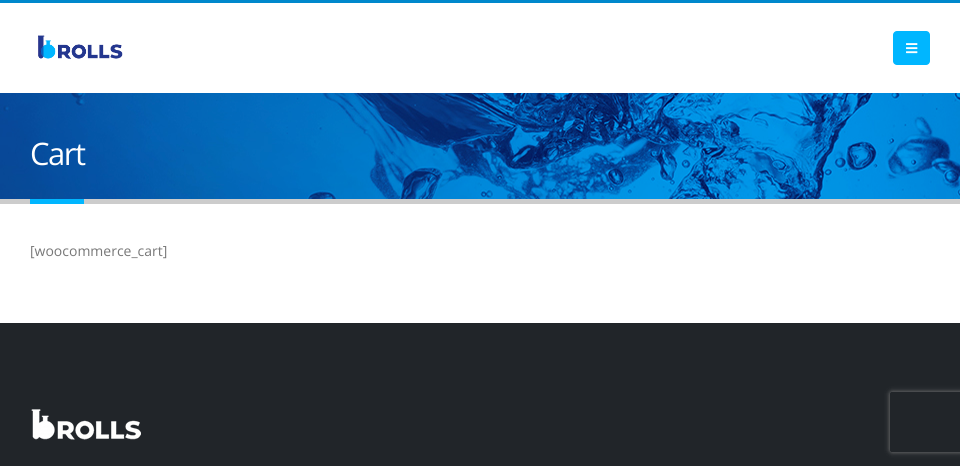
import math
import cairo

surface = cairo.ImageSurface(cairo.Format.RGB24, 960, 466)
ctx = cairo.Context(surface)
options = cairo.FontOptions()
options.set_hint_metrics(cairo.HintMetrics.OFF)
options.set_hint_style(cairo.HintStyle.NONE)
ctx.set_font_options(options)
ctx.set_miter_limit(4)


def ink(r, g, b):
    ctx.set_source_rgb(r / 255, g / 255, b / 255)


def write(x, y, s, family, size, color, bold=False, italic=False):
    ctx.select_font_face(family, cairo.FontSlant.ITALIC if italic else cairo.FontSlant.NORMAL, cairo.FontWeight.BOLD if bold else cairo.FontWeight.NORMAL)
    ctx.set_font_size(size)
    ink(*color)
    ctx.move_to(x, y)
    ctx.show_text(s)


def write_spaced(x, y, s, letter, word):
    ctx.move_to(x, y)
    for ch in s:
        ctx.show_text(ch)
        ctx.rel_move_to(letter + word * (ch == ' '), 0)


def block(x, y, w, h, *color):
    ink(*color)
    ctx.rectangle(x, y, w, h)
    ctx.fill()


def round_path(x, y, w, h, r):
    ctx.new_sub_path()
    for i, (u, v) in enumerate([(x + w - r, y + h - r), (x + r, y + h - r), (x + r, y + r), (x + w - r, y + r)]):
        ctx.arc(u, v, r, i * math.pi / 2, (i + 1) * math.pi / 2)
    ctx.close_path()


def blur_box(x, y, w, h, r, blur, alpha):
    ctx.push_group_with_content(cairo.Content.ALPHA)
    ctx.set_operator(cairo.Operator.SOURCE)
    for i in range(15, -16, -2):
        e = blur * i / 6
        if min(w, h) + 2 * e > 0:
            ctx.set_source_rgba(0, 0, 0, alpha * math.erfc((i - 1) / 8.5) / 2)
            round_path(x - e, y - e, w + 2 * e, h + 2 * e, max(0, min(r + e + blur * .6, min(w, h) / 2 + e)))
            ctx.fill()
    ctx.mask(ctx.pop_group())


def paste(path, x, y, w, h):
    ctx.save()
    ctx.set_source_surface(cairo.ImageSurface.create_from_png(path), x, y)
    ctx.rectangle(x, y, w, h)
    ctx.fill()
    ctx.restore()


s1 = dict(family="Open Sans", size=14, color=(119, 119, 119))

ink(255, 255, 255)
ctx.paint()
block(0, 0, 960, 3, 0, 136, 204)
paste("pic1.png", 38, 35, 85, 24)
ink(0, 182, 255)
round_path(893, 31, 37, 34, 4)
ctx.fill()
paste("pic2.png", 906, 43, 12, 11)
paste("pic3.png", 0, 93, 960, 106)
block(0, 199, 960, 5, 204, 204, 204)
ctx.select_font_face("Open Sans")
ctx.set_font_size(31)
ink(255, 255, 255)
write_spaced(30, 165, "Cart", -1.5, 0)
block(30, 199, 54, 5, 0, 182, 255)
write(30, 256, "[woocommerce_cart]", **s1)
block(0, 323, 960, 143, 33, 37, 41)
paste("pic4.png", 31, 409, 110, 31)
ctx.save()
ctx.set_fill_rule(cairo.FillRule.EVEN_ODD)
ctx.new_path()
ctx.move_to(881, 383)
ctx.line_to(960, 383)
ctx.line_to(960, 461)
ctx.line_to(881, 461)
ctx.close_path()
ctx.move_to(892, 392)
ctx.line_to(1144, 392)
ctx.curve_to(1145, 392, 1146, 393, 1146, 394)
ctx.line_to(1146, 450)
ctx.curve_to(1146, 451, 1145, 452, 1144, 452)
ctx.line_to(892, 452)
ctx.curve_to(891, 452, 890, 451, 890, 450)
ctx.line_to(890, 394)
ctx.curve_to(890, 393, 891, 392, 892, 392)
ctx.close_path()
ctx.clip()
ink(128, 128, 128)
blur_box(890, 392, 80, 60, 2, 2.5, 1)
ctx.restore()
surface.write_to_png("screenshot.png")
